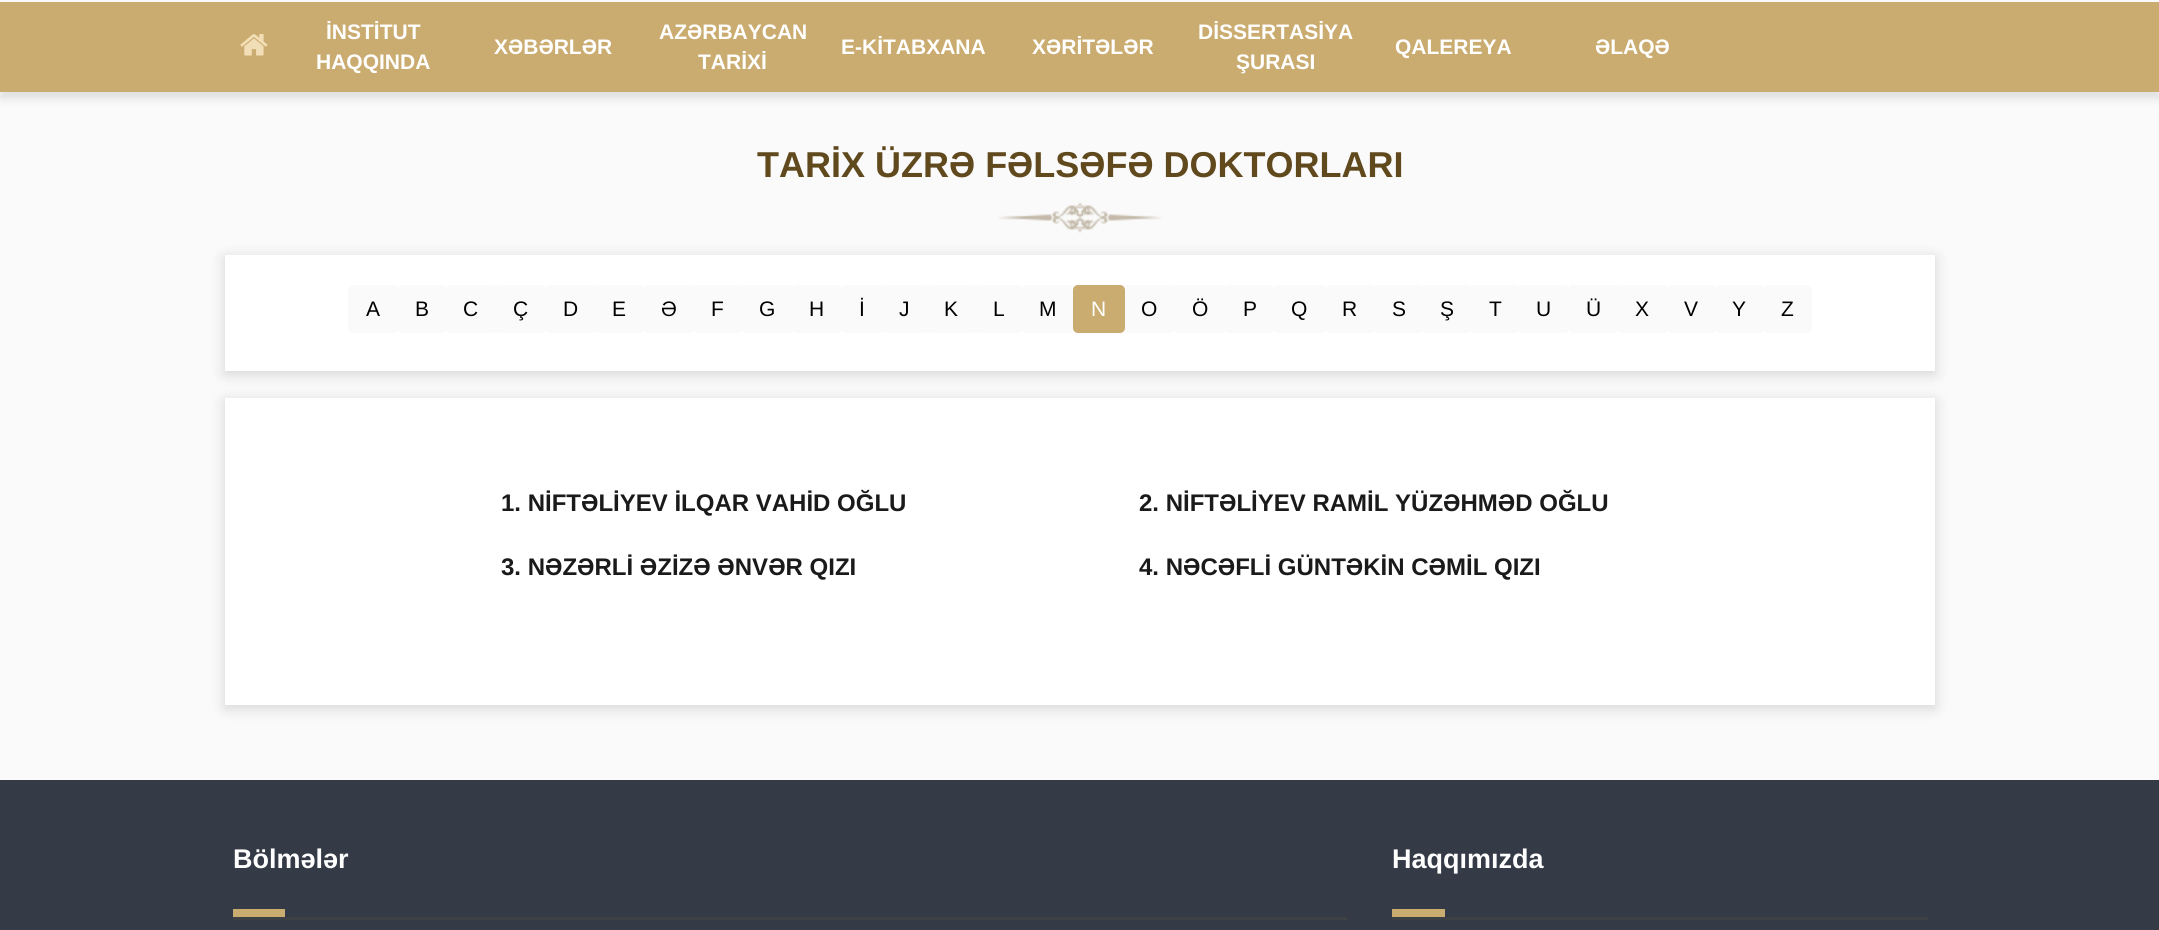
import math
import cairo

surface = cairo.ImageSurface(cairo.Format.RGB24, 2159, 930)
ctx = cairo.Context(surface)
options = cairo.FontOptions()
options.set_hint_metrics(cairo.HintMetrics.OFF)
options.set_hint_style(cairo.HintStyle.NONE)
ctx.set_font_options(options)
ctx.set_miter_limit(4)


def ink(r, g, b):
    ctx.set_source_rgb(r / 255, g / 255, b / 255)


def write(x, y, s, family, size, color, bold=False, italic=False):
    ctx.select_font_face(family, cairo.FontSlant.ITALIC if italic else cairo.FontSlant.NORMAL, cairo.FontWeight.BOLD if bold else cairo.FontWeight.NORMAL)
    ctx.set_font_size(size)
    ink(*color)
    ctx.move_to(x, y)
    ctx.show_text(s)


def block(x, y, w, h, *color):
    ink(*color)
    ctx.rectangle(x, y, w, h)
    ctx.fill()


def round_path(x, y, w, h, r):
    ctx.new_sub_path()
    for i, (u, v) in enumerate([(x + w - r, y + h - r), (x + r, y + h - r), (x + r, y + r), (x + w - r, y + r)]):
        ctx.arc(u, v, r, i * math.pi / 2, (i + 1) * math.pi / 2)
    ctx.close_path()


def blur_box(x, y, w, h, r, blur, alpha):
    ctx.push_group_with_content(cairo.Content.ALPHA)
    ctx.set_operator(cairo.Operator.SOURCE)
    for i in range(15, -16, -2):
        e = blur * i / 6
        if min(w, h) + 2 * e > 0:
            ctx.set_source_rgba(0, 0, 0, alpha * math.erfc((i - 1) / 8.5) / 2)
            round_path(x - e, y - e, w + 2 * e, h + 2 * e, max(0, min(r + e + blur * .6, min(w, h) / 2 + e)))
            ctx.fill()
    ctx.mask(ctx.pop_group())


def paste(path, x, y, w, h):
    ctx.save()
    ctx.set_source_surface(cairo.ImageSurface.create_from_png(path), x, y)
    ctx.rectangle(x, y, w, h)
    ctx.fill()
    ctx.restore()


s1 = dict(family="Liberation Sans", size=21, color=(255, 255, 255), bold=True)
s2 = dict(family="Liberation Sans", size=36, color=(97, 73, 30), bold=True)
s3 = dict(family="Liberation Sans", size=21, color=(0, 0, 0))
s4 = dict(family="Liberation Sans", size=21, color=(255, 255, 255))
s5 = dict(family="Liberation Sans", size=24, color=(26, 26, 26), bold=True)
s6 = dict(family="Liberation Sans", size=27, color=(255, 255, 255), bold=True)

ink(250, 250, 250)
ctx.paint()
ink(0, 0, 0)
blur_box(0, 9, 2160, 90, 0, 4, 0.1)
block(0, 2, 2159, 90, 203, 172, 112)
paste("pic1.png", 240, 34, 28, 22)
write(326, 39, "İNSTİTUT", **s1)
write(316, 69, "HAQQINDA", **s1)
write(494, 54, "XƏBƏRLƏR", **s1)
write(659, 39, "AZƏRBAYCAN", **s1)
write(698, 69, "TARİXİ", **s1)
write(841, 54, "E-KİTABXANA", **s1)
write(1032, 54, "XƏRİTƏLƏR", **s1)
write(1198, 39, "DİSSERTASİYA", **s1)
write(1236, 69, "ŞURASI", **s1)
write(1395, 54, "QALEREYA", **s1)
write(1595, 54, "ƏLAQƏ", **s1)
write(757, 177, "TARİX ÜZRƏ FƏLSƏFƏ DOKTORLARI", **s2)
paste("pic2.png", 998, 202, 164, 31)
ink(0, 0, 0)
blur_box(225, 258, 1710, 116, 0, 7.5, 0.15)
block(225, 255, 1710, 116, 255, 255, 255)
ink(250, 250, 250)
ctx.new_path()
ctx.move_to(354, 285)
ctx.line_to(394, 285)
ctx.curve_to(397, 285, 399, 287, 399, 290)
ctx.line_to(399, 328)
ctx.curve_to(399, 331, 397, 333, 394, 333)
ctx.line_to(354, 333)
ctx.curve_to(350.5, 333, 348, 330.5, 348, 327)
ctx.line_to(348, 291)
ctx.curve_to(348, 287.5, 350.5, 285, 354, 285)
ctx.close_path()
ctx.fill()
write(366, 316, "A", **s3)
ink(250, 250, 250)
round_path(398, 285, 49, 48, 5)
ctx.fill()
write(415, 316, "B", **s3)
ink(250, 250, 250)
round_path(446, 285, 51, 48, 5)
ctx.fill()
write(463, 316, "C", **s3)
ink(250, 250, 250)
round_path(495, 285, 51, 48, 5)
ctx.fill()
write(513, 316, "Ç", **s3)
ink(250, 250, 250)
round_path(545, 285, 51, 48, 5)
ctx.fill()
write(563, 316, "D", **s3)
ink(250, 250, 250)
round_path(594, 285, 51, 48, 5)
ctx.fill()
write(612, 316, "E", **s3)
ink(250, 250, 250)
round_path(644, 285, 51, 48, 5)
ctx.fill()
write(661, 316, "Ə", **s3)
ink(250, 250, 250)
round_path(693, 285, 50, 48, 5)
ctx.fill()
write(711, 316, "F", **s3)
ink(250, 250, 250)
round_path(741, 285, 53, 48, 5)
ctx.fill()
write(759, 316, "G", **s3)
ink(250, 250, 250)
round_path(792, 285, 51, 48, 5)
ctx.fill()
write(809, 316, "H", **s3)
ink(250, 250, 250)
round_path(842, 285, 42, 48, 5)
ctx.fill()
write(859, 316, "İ", **s3)
ink(250, 250, 250)
round_path(882, 285, 47, 48, 5)
ctx.fill()
write(899, 316, "J", **s3)
ink(250, 250, 250)
round_path(927, 285, 50, 48, 5)
ctx.fill()
write(944, 316, "K", **s3)
ink(250, 250, 250)
round_path(975, 285, 48, 48, 5)
ctx.fill()
write(993, 316, "L", **s3)
ink(250, 250, 250)
round_path(1022, 285, 52, 48, 5)
ctx.fill()
write(1039, 316, "M", **s3)
ink(250, 250, 250)
round_path(1124, 285, 51, 48, 5)
ctx.fill()
ink(203, 172, 112)
round_path(1073, 285, 52, 48, 5)
ctx.fill()
write(1091, 316, "N", **s4)
write(1141, 316, "O", **s3)
ink(250, 250, 250)
round_path(1173, 285, 53, 48, 5)
ctx.fill()
write(1192, 316, "Ö", **s3)
ink(250, 250, 250)
round_path(1224, 285, 51, 48, 5)
ctx.fill()
write(1243, 316, "P", **s3)
ink(250, 250, 250)
round_path(1274, 285, 52, 48, 5)
ctx.fill()
write(1291, 316, "Q", **s3)
ink(250, 250, 250)
round_path(1325, 285, 51, 48, 5)
ctx.fill()
write(1342, 316, "R", **s3)
ink(250, 250, 250)
round_path(1374, 285, 50, 48, 5)
ctx.fill()
write(1392, 316, "S", **s3)
ink(250, 250, 250)
round_path(1422, 285, 50, 48, 5)
ctx.fill()
write(1440, 316, "Ş", **s3)
ink(250, 250, 250)
round_path(1470, 285, 50, 48, 5)
ctx.fill()
write(1489, 316, "T", **s3)
ink(250, 250, 250)
round_path(1518, 285, 51, 48, 5)
ctx.fill()
write(1536, 316, "U", **s3)
ink(250, 250, 250)
round_path(1568, 285, 51, 48, 5)
ctx.fill()
write(1586, 316, "Ü", **s3)
ink(250, 250, 250)
round_path(1617, 285, 51, 48, 5)
ctx.fill()
write(1635, 316, "X", **s3)
ink(250, 250, 250)
round_path(1667, 285, 49, 48, 5)
ctx.fill()
write(1684, 316, "V", **s3)
ink(250, 250, 250)
round_path(1715, 285, 49, 48, 5)
ctx.fill()
write(1732, 316, "Y", **s3)
ink(250, 250, 250)
ctx.new_path()
ctx.move_to(1768, 285)
ctx.line_to(1806, 285)
ctx.curve_to(1809.5, 285, 1812, 287.5, 1812, 291)
ctx.line_to(1812, 327)
ctx.curve_to(1812, 330.5, 1809.5, 333, 1806, 333)
ctx.line_to(1768, 333)
ctx.curve_to(1765, 333, 1763, 331, 1763, 328)
ctx.line_to(1763, 290)
ctx.curve_to(1763, 287, 1765, 285, 1768, 285)
ctx.close_path()
ctx.fill()
write(1781, 316, "Z", **s3)
ink(0, 0, 0)
blur_box(225, 401, 1710, 307, 0, 7.5, 0.15)
block(225, 398, 1710, 307, 255, 255, 255)
write(501, 511, "1. NİFTƏLİYEV İLQAR VAHİD OĞLU", **s5)
write(1139, 511, "2. NİFTƏLİYEV RAMİL YÜZƏHMƏD OĞLU", **s5)
write(501, 575, "3. NƏZƏRLİ ƏZİZƏ ƏNVƏR QIZI", **s5)
write(1139, 575, "4. NƏCƏFLİ GÜNTƏKİN CƏMİL QIZI", **s5)
block(0, 780, 2159, 150, 52, 58, 70)
write(233, 868, "Bölmələr", **s6)
block(233, 909, 52, 8, 203, 172, 112)
block(233, 917, 1114, 3, 61, 64, 69)
write(1392, 868, "Haqqımızda", **s6)
block(1392, 909, 53, 8, 203, 172, 112)
block(1392, 917, 536, 3, 61, 64, 69)
surface.write_to_png("screenshot.png")
